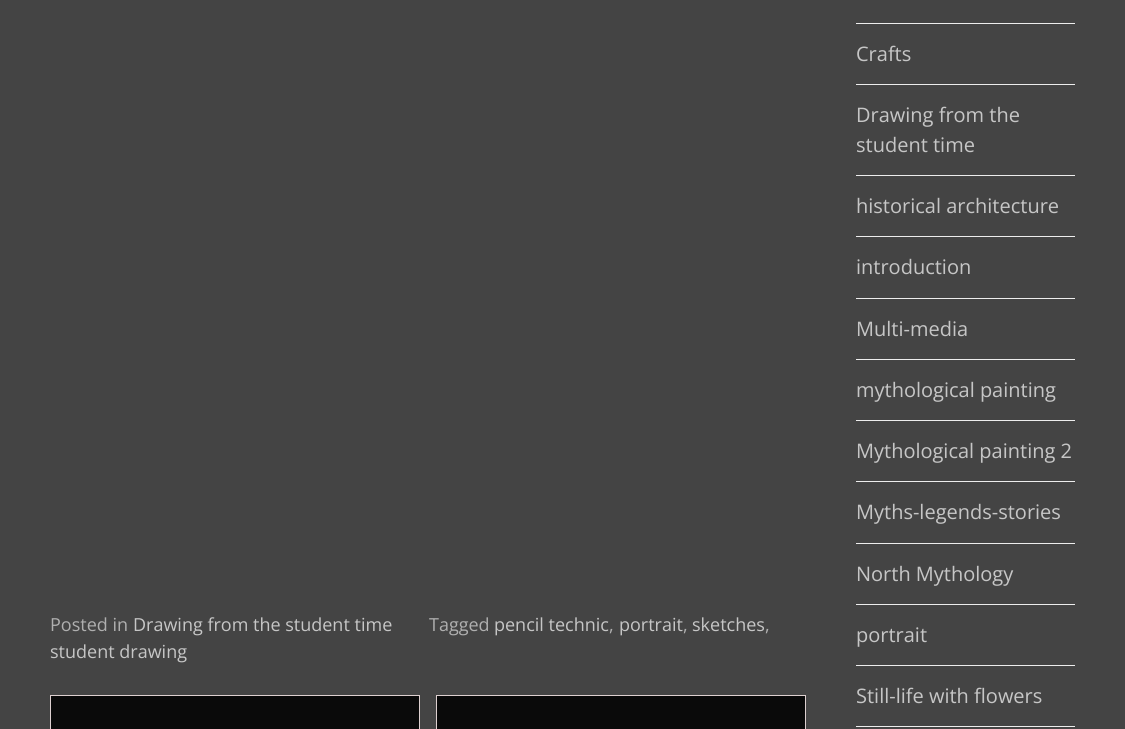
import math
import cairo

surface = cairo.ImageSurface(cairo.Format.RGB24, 1125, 729)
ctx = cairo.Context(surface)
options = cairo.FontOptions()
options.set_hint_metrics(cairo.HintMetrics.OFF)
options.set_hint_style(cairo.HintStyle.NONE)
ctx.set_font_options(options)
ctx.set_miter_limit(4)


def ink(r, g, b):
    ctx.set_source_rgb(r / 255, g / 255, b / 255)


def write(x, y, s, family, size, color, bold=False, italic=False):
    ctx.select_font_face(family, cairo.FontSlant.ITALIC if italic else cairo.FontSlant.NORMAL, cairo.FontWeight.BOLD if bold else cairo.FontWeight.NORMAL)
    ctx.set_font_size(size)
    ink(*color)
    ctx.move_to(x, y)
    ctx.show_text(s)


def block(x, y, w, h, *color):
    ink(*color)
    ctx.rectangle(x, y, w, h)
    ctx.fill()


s1 = dict(family="Open Sans", size=18, color=(175, 175, 175))
s2 = dict(family="Open Sans", size=18, color=(198, 198, 198))
s3 = dict(family="Open Sans", size=20, color=(198, 198, 198))

ink(68, 68, 68)
ctx.paint()
write(50, 631, "Posted in", **s1)
write(133, 631, "Drawing from the student time", **s2)
write(429, 631, "Tagged", **s1)
write(494, 631, "pencil technic", **s2)
write(609, 631, ",", **s1)
write(619, 631, "portrait", **s2)
write(683, 631, ",", **s1)
write(692, 631, "sketches", **s2)
write(765, 631, ",", **s1)
write(50, 658, "student drawing", **s2)
ink(10, 10, 10)
ctx.rectangle(50.5, 695.5, 369, 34)
ctx.fill_preserve()
ink(221, 208, 208)
ctx.set_line_width(1)
ctx.stroke()
ink(10, 10, 10)
ctx.rectangle(436.5, 695.5, 369, 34)
ctx.fill_preserve()
ink(221, 208, 208)
ctx.stroke()
block(856, 23, 219, 1, 237, 237, 237)
block(856, 84, 219, 1, 237, 237, 237)
write(856, 61, "Crafts", **s3)
block(856, 175, 219, 1, 237, 237, 237)
write(856, 122, "Drawing from the", **s3)
write(856, 152, "student time", **s3)
block(856, 236, 219, 1, 237, 237, 237)
write(856, 213, "historical architecture", **s3)
block(856, 298, 219, 1, 237, 237, 237)
write(856, 274, "introduction", **s3)
block(856, 359, 219, 1, 237, 237, 237)
write(856, 336, "Multi-media", **s3)
block(856, 420, 219, 1, 237, 237, 237)
write(856, 397, "mythological painting", **s3)
block(856, 481, 219, 1, 237, 237, 237)
write(856, 458, "Mythological painting 2", **s3)
block(856, 543, 219, 1, 237, 237, 237)
write(856, 519, "Myths-legends-stories", **s3)
block(856, 604, 219, 1, 237, 237, 237)
write(856, 581, "North Mythology", **s3)
block(856, 665, 219, 1, 237, 237, 237)
write(856, 642, "portrait", **s3)
block(856, 726, 219, 1, 237, 237, 237)
write(856, 703, "Still-life with flowers", **s3)
surface.write_to_png("screenshot.png")
